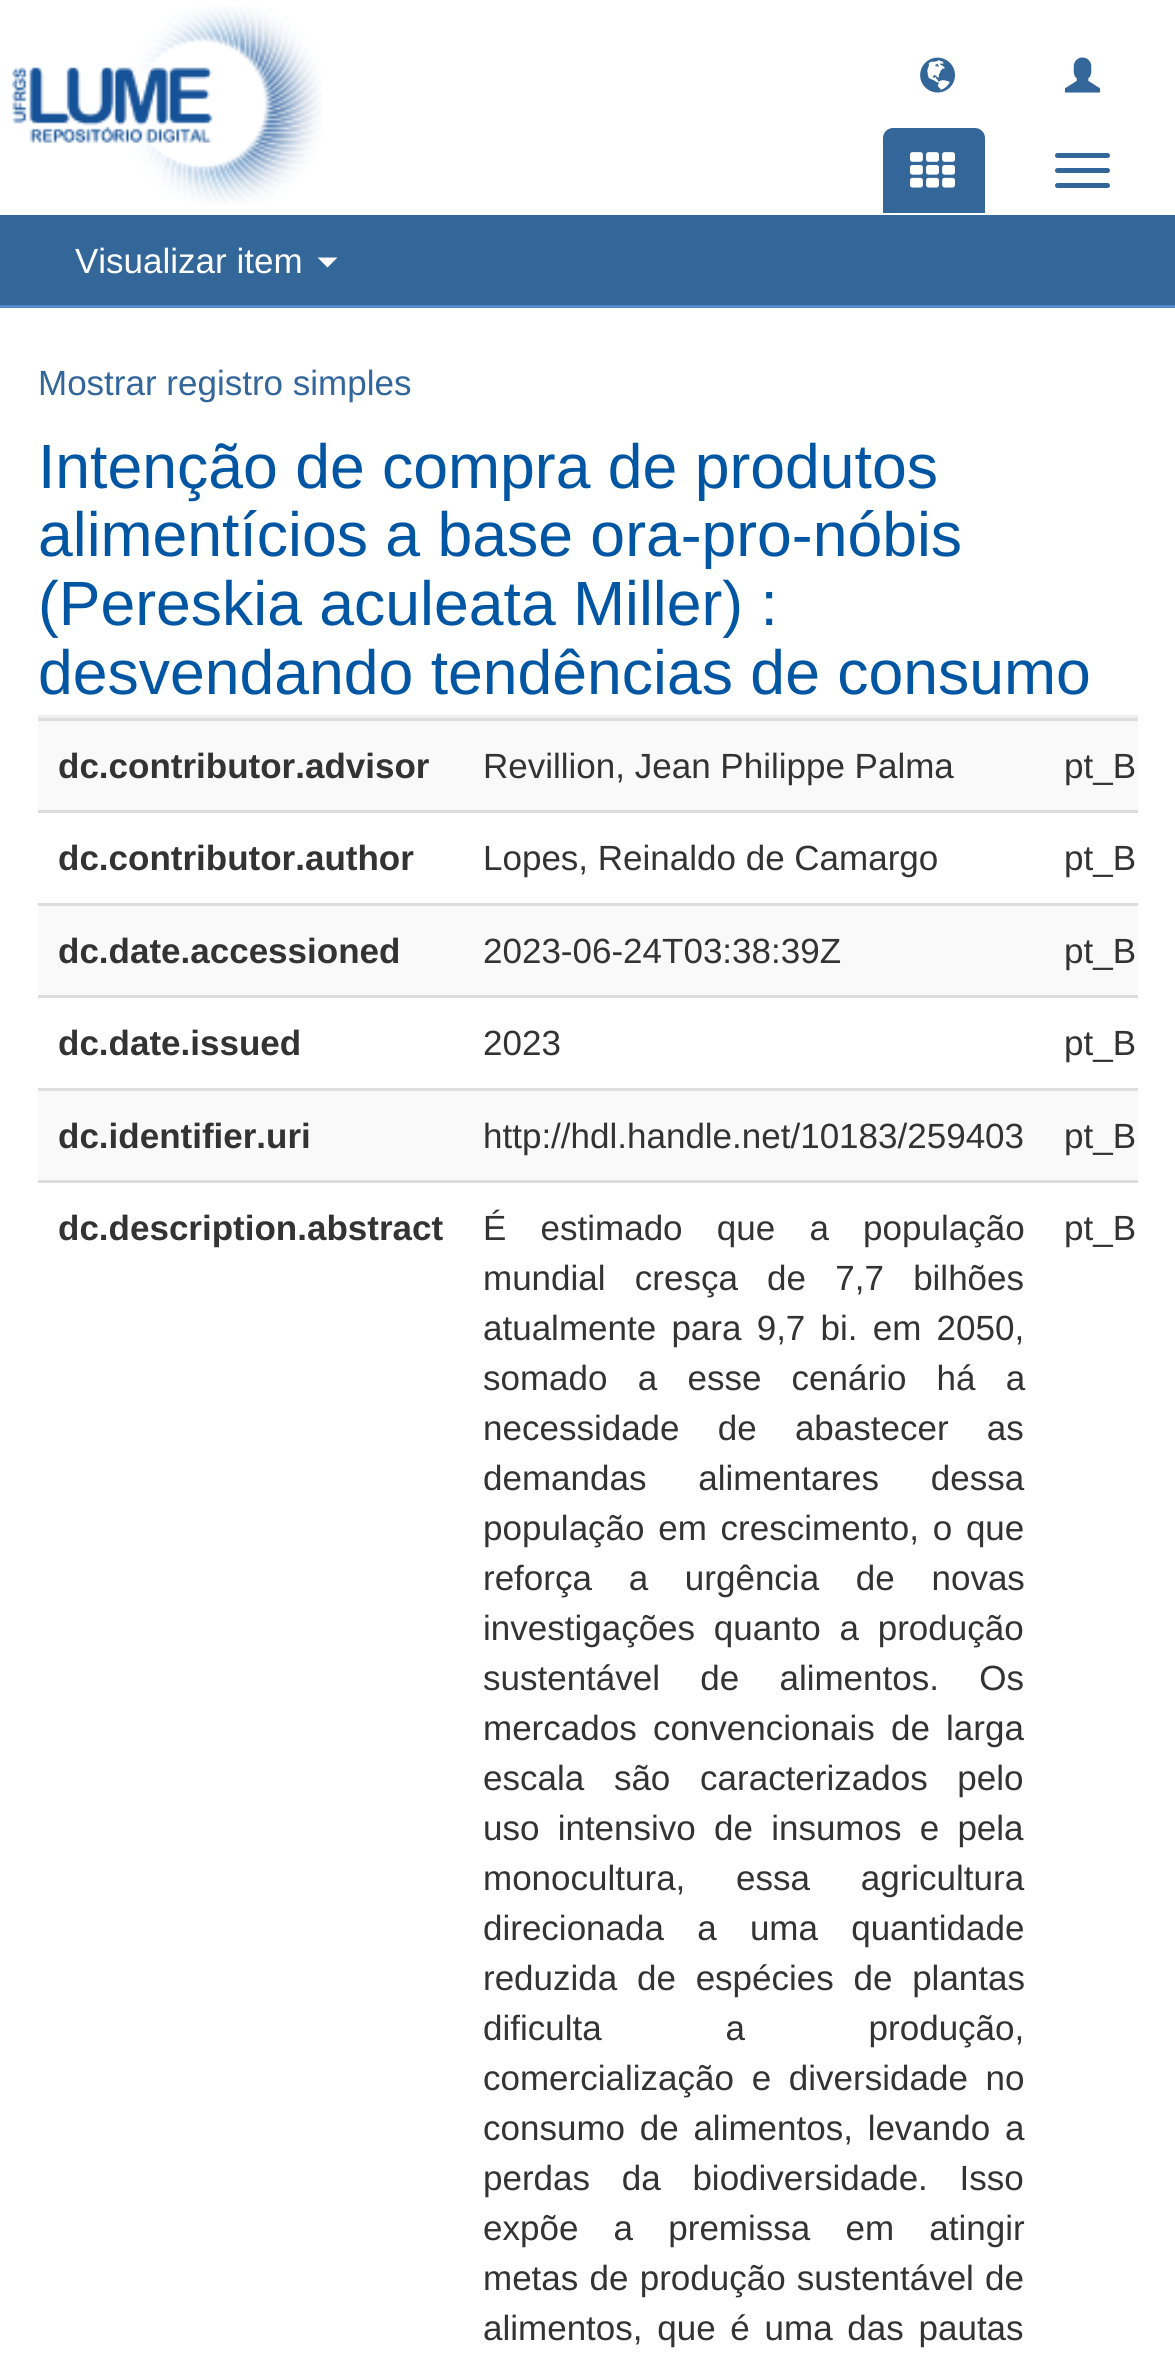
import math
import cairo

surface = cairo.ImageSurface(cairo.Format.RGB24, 1175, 2375)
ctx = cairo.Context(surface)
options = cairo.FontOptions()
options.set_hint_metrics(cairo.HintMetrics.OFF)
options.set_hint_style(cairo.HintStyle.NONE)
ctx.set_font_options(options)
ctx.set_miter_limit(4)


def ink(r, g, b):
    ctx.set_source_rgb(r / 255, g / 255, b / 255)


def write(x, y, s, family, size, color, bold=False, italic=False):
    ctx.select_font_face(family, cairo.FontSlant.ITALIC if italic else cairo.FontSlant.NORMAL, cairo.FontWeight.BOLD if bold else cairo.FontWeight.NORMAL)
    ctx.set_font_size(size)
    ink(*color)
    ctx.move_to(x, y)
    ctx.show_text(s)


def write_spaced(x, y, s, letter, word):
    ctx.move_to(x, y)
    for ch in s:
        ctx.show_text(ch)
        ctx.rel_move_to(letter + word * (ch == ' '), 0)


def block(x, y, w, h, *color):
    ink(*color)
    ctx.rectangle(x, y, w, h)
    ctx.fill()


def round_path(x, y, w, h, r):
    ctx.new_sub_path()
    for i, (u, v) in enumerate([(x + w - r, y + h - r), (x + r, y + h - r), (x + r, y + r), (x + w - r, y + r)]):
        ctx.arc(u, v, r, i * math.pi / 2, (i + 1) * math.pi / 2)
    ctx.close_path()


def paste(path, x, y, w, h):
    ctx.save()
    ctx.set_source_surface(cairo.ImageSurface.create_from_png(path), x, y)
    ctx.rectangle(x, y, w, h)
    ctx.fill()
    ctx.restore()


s1 = dict(family="Liberation Sans", size=35, color=(255, 255, 255))
s2 = dict(family="Liberation Sans", size=35, color=(51, 102, 153))
s3 = dict(family="Liberation Sans", size=62.5, color=(0, 86, 163))
s4 = dict(family="Liberation Sans", size=35, color=(51, 51, 51), bold=True)
s5 = dict(family="Liberation Sans", size=35, color=(51, 51, 51))

ink(255, 255, 255)
ctx.paint()
paste("pic1.png", 12, 6, 310, 199)
paste("pic2.png", 920, 57, 35, 36)
paste("pic3.png", 1065, 57, 35, 36)
ink(51, 102, 153)
ctx.new_path()
ctx.move_to(893, 128)
ctx.line_to(975, 128)
ctx.curve_to(980.5, 128, 985, 132.5, 985, 138)
ctx.line_to(985, 213)
ctx.line_to(883, 213)
ctx.line_to(883, 138)
ctx.curve_to(883, 132.5, 887.5, 128, 893, 128)
ctx.close_path()
ctx.fill()
paste("pic4.png", 910, 152, 45, 36)
round_path(1055, 153, 55, 5, 2.5)
ctx.fill()
round_path(1055, 168, 55, 5, 2.5)
ctx.fill()
round_path(1055, 183, 55, 5, 2.5)
ctx.fill()
block(0, 215, 1175, 90, 51, 102, 153)
block(0, 305, 1175, 3, 83, 140, 198)
write(75, 273, "Visualizar item", **s1)
ctx.new_path()
ctx.move_to(317.5, 257.5)
ctx.line_to(337.5, 257.5)
ctx.line_to(327.5, 267.5)
ctx.close_path()
ctx.fill()
write(38, 395, "Mostrar registro simples", **s2)
block(38, 715, 1100, 3, 238, 238, 238)
write(38, 488, "Intenção de compra de produtos", **s3)
write(38, 556, "alimentícios a base ora-pro-nóbis", **s3)
write(38, 625, "(Pereskia aculeata Miller) :", **s3)
write(38, 694, "desvendando tendências de consumo", **s3)
block(38, 721, 1100, 89, 249, 249, 249)
write(58, 778, "dc.contributor.advisor", **s4)
write(483, 778, "Revillion, Jean Philippe Palma", **s5)
block(38, 718, 1100, 3, 221, 221, 221)
write(1064, 778, "pt_B", **s5)
write(58, 870, "dc.contributor.author", **s4)
write(483, 870, "Lopes, Reinaldo de Camargo", **s5)
block(38, 810, 1100, 3, 221, 221, 221)
write(1064, 870, "pt_B", **s5)
block(38, 906, 1100, 89, 249, 249, 249)
write(58, 963, "dc.date.accessioned", **s4)
write(483, 963, "2023-06-24T03:38:39Z", **s5)
block(38, 903, 1100, 3, 221, 221, 221)
write(1064, 963, "pt_B", **s5)
write(58, 1055, "dc.date.issued", **s4)
write(483, 1055, "2023", **s5)
block(38, 995, 1100, 3, 221, 221, 221)
write(1064, 1055, "pt_B", **s5)
block(38, 1091, 1100, 89, 249, 249, 249)
write(58, 1148, "dc.identifier.uri", **s4)
write(483, 1148, "http://hdl.handle.net/10183/259403", **s5)
block(38, 1088, 1100, 3, 221, 221, 221)
write(1064, 1148, "pt_B", **s5)
write(58, 1240, "dc.description.abstract", **s4)
ctx.select_font_face("Liberation Sans")
write_spaced(483, 1240, "É estimado que a população", 0, 24.5)
write_spaced(483, 1290, "mundial cresça de 7,7 bilhões", 0, 19.5)
write_spaced(483, 1340, "atualmente para 9,7 bi. em 2050,", 0, 5.5)
write_spaced(483, 1390, "somado a esse cenário há a", 0, 20.5)
write_spaced(483, 1440, "necessidade de abastecer as", 0, 28.5)
write_spaced(483, 1490, "demandas alimentares dessa", 0, 42)
write_spaced(483, 1540, "população em crescimento, o que", 0, 4)
write_spaced(483, 1590, "reforça a urgência de novas", 0, 27)
write_spaced(483, 1640, "investigações quanto a produção", 0, 9)
write_spaced(483, 1690, "sustentável de alimentos. Os", 0, 30.5)
write_spaced(483, 1740, "mercados convencionais de larga", 0, 6.5)
write_spaced(483, 1790, "escala são caracterizados pelo", 0, 20)
write_spaced(483, 1840, "uso intensivo de insumos e pela", 0, 8.5)
write_spaced(483, 1890, "monocultura, essa agricultura", 0, 41)
write_spaced(483, 1940, "direcionada a uma quantidade", 0, 23.5)
write_spaced(483, 1990, "reduzida de espécies de plantas", 0, 10)
write_spaced(483, 2040, "dificulta a produção,", 0, 114)
write_spaced(483, 2090, "comercialização e diversidade no", 0, 8)
write_spaced(483, 2140, "consumo de alimentos, levando a", 0, 5)
write_spaced(483, 2190, "perdas da biodiversidade. Isso", 0, 22)
write_spaced(483, 2240, "expõe a premissa em atingir", 0, 25.5)
write_spaced(483, 2290, "metas de produção sustentável de", 0, 1.5)
write_spaced(483, 2340, "alimentos, que é uma das pautas", 0, 5)
block(38, 1180, 1100, 3, 221, 221, 221)
write(1064, 1240, "pt_B", **s5)
surface.write_to_png("screenshot.png")
